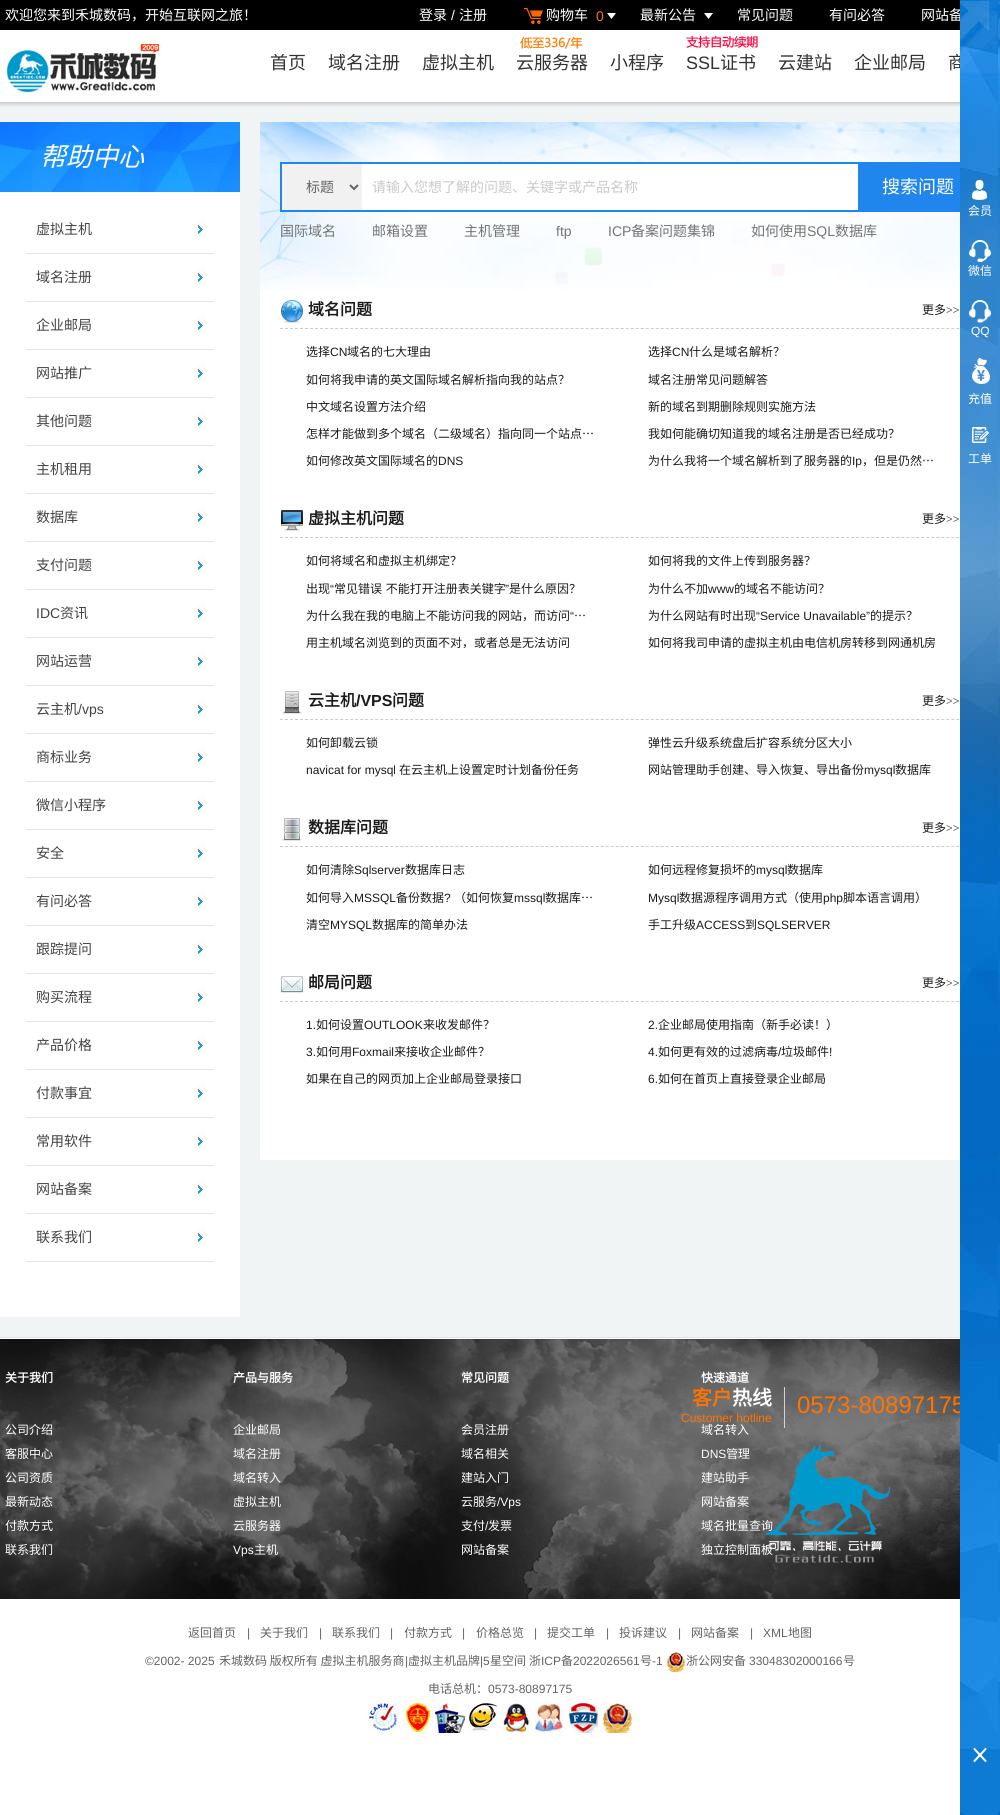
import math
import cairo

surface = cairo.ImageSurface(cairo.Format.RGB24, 1000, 1815)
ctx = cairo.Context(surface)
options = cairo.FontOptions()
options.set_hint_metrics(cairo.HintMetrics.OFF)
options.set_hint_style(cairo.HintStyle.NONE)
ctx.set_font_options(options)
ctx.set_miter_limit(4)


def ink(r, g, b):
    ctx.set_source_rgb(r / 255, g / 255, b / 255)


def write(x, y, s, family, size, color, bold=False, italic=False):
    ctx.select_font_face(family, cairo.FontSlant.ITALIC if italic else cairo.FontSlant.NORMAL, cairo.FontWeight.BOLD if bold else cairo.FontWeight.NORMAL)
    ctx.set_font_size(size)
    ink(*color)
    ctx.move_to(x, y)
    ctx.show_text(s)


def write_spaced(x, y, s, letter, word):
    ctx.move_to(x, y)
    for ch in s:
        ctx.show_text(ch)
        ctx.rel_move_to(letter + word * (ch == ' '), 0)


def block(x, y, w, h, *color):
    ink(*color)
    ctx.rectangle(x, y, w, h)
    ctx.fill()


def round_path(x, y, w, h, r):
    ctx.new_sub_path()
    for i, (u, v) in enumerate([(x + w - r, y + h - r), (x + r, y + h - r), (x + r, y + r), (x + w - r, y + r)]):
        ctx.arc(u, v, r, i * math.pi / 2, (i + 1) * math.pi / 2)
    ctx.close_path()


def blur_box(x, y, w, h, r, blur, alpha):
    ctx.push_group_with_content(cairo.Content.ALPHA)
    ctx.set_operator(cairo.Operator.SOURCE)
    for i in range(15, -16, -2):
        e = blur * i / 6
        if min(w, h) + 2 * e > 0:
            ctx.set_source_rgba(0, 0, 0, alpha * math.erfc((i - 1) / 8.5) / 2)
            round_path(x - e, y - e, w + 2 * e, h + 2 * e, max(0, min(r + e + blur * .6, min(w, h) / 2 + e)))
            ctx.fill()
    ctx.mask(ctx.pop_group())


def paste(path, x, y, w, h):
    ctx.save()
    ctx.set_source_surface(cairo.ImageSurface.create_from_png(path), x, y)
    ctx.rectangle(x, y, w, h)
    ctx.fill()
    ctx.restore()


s1 = dict(family="Noto Sans CJK SC", size=14, color=(255, 255, 255))
s2 = dict(family="Liberation Sans", size=14, color=(255, 255, 255))
s3 = dict(family="Liberation Sans", size=14, color=(254, 116, 2))
s4 = dict(family="Noto Sans CJK SC", size=18, color=(51, 51, 51))
s5 = dict(family="Liberation Sans", size=18, color=(51, 51, 51))
s6 = dict(family="Noto Sans CJK SC", size=26, color=(255, 255, 255), italic=True)
s7 = dict(family="Noto Sans CJK SC", size=14, color=(67, 67, 67))
s8 = dict(family="Liberation Sans", size=14, color=(67, 67, 67))
s9 = dict(family="Noto Sans CJK SC", size=14, color=(99, 99, 99))
s10 = dict(family="Noto Sans CJK SC", size=14, color=(201, 201, 201))
s11 = dict(family="Noto Sans CJK SC", size=18, color=(255, 255, 255))
s12 = dict(family="Noto Sans CJK SC", size=14, color=(116, 116, 116))
s13 = dict(family="Liberation Sans", size=14, color=(116, 116, 116))
s14 = dict(family="Noto Sans CJK SC", size=16, color=(26, 26, 26), bold=True)
s15 = dict(family="Noto Sans CJK SC", size=12, color=(26, 26, 26))
s16 = dict(family="Liberation Serif", size=12, color=(26, 26, 26))
s17 = dict(family="Liberation Sans", size=12, color=(26, 26, 26))
s18 = dict(family="Liberation Sans", size=16, color=(26, 26, 26), bold=True)
s19 = dict(family="Liberation Sans", size=24, color=(254, 116, 2))
s20 = dict(family="Noto Sans CJK SC", size=12, color=(255, 255, 255))
s21 = dict(family="Liberation Sans", size=12, color=(255, 255, 255))
s22 = dict(family="Noto Sans CJK SC", size=12, color=(255, 255, 255), bold=True)
s23 = dict(family="Noto Sans CJK SC", size=20, color=(254, 116, 2), bold=True)
s24 = dict(family="Noto Sans CJK SC", size=20, color=(255, 255, 255), bold=True)
s25 = dict(family="Liberation Sans", size=12, color=(254, 116, 2))
s26 = dict(family="Noto Sans CJK SC", size=12, color=(99, 99, 99))
s27 = dict(family="Liberation Sans", size=12, color=(99, 99, 99))

ink(255, 255, 255)
ctx.paint()
block(0, 102, 960, 1235, 241, 244, 244)
ctx.save()
ctx.rectangle(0, 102, 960, 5)
ctx.clip()
ink(70, 70, 70)
blur_box(0, 1, 1000, 102, 0, 2.5, 0.39)
ctx.restore()
block(0, 0, 960, 30, 0, 0, 0)
write(5, 20, "欢迎您来到禾城数码，开始互联网之旅！", **s1)
write(419, 20, "登录", **s1)
write(451, 20, "/", **s2)
write(459, 20, "注册", **s1)
paste("pic1.png", 524, 8, 19, 16)
write(546, 20, "购物车", **s1)
write(596, 21, "0", **s3)
paste("pic2.png", 607, 13, 9, 6)
write(640, 20, "最新公告", **s1)
paste("pic2.png", 704, 13, 9, 6)
write(737, 20, "常见问题", **s1)
write(829, 20, "有问必答", **s1)
write(921, 20, "网站备", **s1)
paste("pic3.png", 7, 44, 152, 48)
write(270, 69, "首页", **s4)
write(328, 69, "域名注册", **s4)
write(422, 69, "虚拟主机", **s4)
paste("pic4.png", 520, 36, 63, 13)
write(516, 69, "云服务器", **s4)
write(610, 69, "小程序", **s4)
paste("pic5.png", 686, 35, 72, 13)
write(686, 69, "SSL", **s5)
write(720, 69, "证书", **s4)
write(778, 69, "云建站", **s4)
write(854, 69, "企业邮局", **s4)
write(948, 69, "商", **s4)
paste("pic6.png", 0, 122, 240, 70)
write(40, 166, "帮助中心", **s6)
block(0, 192, 240, 1125, 255, 255, 255)
paste("pic7.png", 198, 220, 8, 16)
block(26, 253, 188, 1, 229, 229, 229)
write(36, 234, "虚拟主机", **s7)
paste("pic7.png", 198, 268, 8, 16)
block(26, 301, 188, 1, 229, 229, 229)
write(36, 282, "域名注册", **s7)
paste("pic7.png", 198, 316, 8, 16)
block(26, 349, 188, 1, 229, 229, 229)
write(36, 330, "企业邮局", **s7)
paste("pic7.png", 198, 364, 8, 16)
block(26, 397, 188, 1, 229, 229, 229)
write(36, 378, "网站推广", **s7)
paste("pic7.png", 198, 412, 8, 16)
block(26, 445, 188, 1, 229, 229, 229)
write(36, 426, "其他问题", **s7)
paste("pic7.png", 198, 460, 8, 16)
block(26, 493, 188, 1, 229, 229, 229)
write(36, 474, "主机租用", **s7)
paste("pic7.png", 198, 508, 8, 16)
block(26, 541, 188, 1, 229, 229, 229)
write(36, 522, "数据库", **s7)
paste("pic7.png", 198, 556, 8, 16)
block(26, 589, 188, 1, 229, 229, 229)
write(36, 570, "支付问题", **s7)
paste("pic7.png", 198, 604, 8, 16)
block(26, 637, 188, 1, 229, 229, 229)
write(36, 618, "IDC", **s8)
write(60, 618, "资讯", **s7)
paste("pic7.png", 198, 652, 8, 16)
block(26, 685, 188, 1, 229, 229, 229)
write(36, 666, "网站运营", **s7)
paste("pic7.png", 198, 700, 8, 16)
block(26, 733, 188, 1, 229, 229, 229)
write(36, 714, "云主机", **s7)
write(78, 714, "/vps", **s8)
paste("pic7.png", 198, 748, 8, 16)
block(26, 781, 188, 1, 229, 229, 229)
write(36, 762, "商标业务", **s7)
paste("pic7.png", 198, 796, 8, 16)
block(26, 829, 188, 1, 229, 229, 229)
write(36, 810, "微信小程序", **s7)
paste("pic7.png", 198, 844, 8, 16)
block(26, 877, 188, 1, 229, 229, 229)
write(36, 858, "安全", **s7)
paste("pic7.png", 198, 892, 8, 16)
block(26, 925, 188, 1, 229, 229, 229)
write(36, 906, "有问必答", **s7)
paste("pic7.png", 198, 940, 8, 16)
block(26, 973, 188, 1, 229, 229, 229)
write(36, 954, "跟踪提问", **s7)
paste("pic7.png", 198, 988, 8, 16)
block(26, 1021, 188, 1, 229, 229, 229)
write(36, 1002, "购买流程", **s7)
paste("pic7.png", 198, 1036, 8, 16)
block(26, 1069, 188, 1, 229, 229, 229)
write(36, 1050, "产品价格", **s7)
paste("pic7.png", 198, 1084, 8, 16)
block(26, 1117, 188, 1, 229, 229, 229)
write(36, 1098, "付款事宜", **s7)
paste("pic7.png", 198, 1132, 8, 16)
block(26, 1165, 188, 1, 229, 229, 229)
write(36, 1146, "常用软件", **s7)
paste("pic7.png", 198, 1180, 8, 16)
block(26, 1213, 188, 1, 229, 229, 229)
write(36, 1194, "网站备案", **s7)
paste("pic7.png", 198, 1228, 8, 16)
block(26, 1261, 188, 1, 229, 229, 229)
write(36, 1242, "联系我们", **s7)
block(260, 290, 700, 870, 255, 255, 255)
paste("pic8.png", 260, 122, 700, 168)
block(362, 164, 496, 46, 255, 255, 255)
ctx.rectangle(281, 163, 698, 48)
ink(32, 134, 238)
ctx.stroke()
block(282, 164, 80, 46, 241, 241, 241)
ctx.new_path()
ctx.move_to(350, 185)
ctx.line_to(354, 189)
ctx.line_to(358, 185)
ink(99, 99, 99)
ctx.stroke()
write(306, 192, "标题", **s9)
write(372, 192, "请输入您想了解的问题、关键字或产品名称", **s10)
block(858, 164, 102, 46, 32, 134, 238)
write(882, 193, "搜索问题", **s11)
write(280, 236, "国际域名", **s12)
write(372, 236, "邮箱设置", **s12)
write(464, 236, "主机管理", **s12)
write(556, 236, "ftp", **s13)
write(608, 236, "ICP", **s13)
write(631, 236, "备案问题集锦", **s12)
write(751, 236, "如何使用", **s12)
write(807, 236, "SQL", **s13)
write(835, 236, "数据库", **s12)
paste("pic9.png", 281, 300, 22, 23)
ctx.new_path()
ctx.move_to(280, 328.5)
ctx.line_to(980, 328.5)
ink(204, 204, 204)
ctx.set_line_width(1)
ctx.set_dash([3, 2.01])
ctx.stroke()
write(308, 315, "域名问题", **s14)
write(922, 314, "更多", **s15)
write(946, 314, ">>", **s16)
write(306, 356, "选择", **s15)
write(330, 356, "CN", **s17)
write(347, 356, "域名的七大理由", **s15)
write(648, 356, "选择", **s15)
write(672, 356, "CN", **s17)
write(689, 356, "什么是域名解析？", **s15)
write(306, 384, "如何将我申请的英文国际域名解析指向我的站点？", **s15)
write(648, 384, "域名注册常见问题解答", **s15)
write(306, 411, "中文域名设置方法介绍", **s15)
write(648, 411, "新的域名到期删除规则实施方法", **s15)
write(306, 438, "怎样才能做到多个域名（二级域名）指向同一个站点…", **s15)
write(648, 438, "我如何能确切知道我的域名注册是否已经成功？", **s15)
write(306, 465, "如何修改英文国际域名的", **s15)
write(438, 465, "DNS", **s17)
write(648, 465, "为什么我将一个域名解析到了服务器的", **s15)
write(852, 465, "Ip", **s17)
write(862, 465, "，但是仍然…", **s15)
paste("pic10.png", 281, 510, 22, 21)
ctx.new_path()
ctx.move_to(280, 537.5)
ctx.line_to(980, 537.5)
ink(204, 204, 204)
ctx.stroke()
write(308, 524, "虚拟主机问题", **s14)
write(922, 523, "更多", **s15)
write(946, 523, ">>", **s16)
write(306, 565, "如何将域名和虚拟主机绑定？", **s15)
write(648, 565, "如何将我的文件上传到服务器？", **s15)
write(306, 593, "出现", **s15)
write(330, 593, "“", **s17)
ctx.select_font_face("Noto Sans CJK SC")
write_spaced(334, 593, "常见错误 不能打开注册表关键字", 0, 1)
write(505, 593, "”", **s17)
write(509, 593, "是什么原因？", **s15)
write(648, 593, "为什么不加", **s15)
write(708, 593, "www", **s17)
write(734, 593, "的域名不能访问？", **s15)
write(306, 620, "为什么我在我的电脑上不能访问我的网站，而访问", **s15)
write(570, 620, "“", **s17)
write(574, 620, "…", **s15)
write(648, 620, "为什么网站有时出现", **s15)
write(756, 620, "“Service Unavailable”", **s17)
write(870, 620, "的提示？", **s15)
write(306, 647, "用主机域名浏览到的页面不对，或者总是无法访问", **s15)
write(648, 647, "如何将我司申请的虚拟主机由电信机房转移到网通机房", **s15)
paste("pic11.png", 282, 691, 20, 23)
ctx.new_path()
ctx.move_to(280, 719.5)
ctx.line_to(980, 719.5)
ink(204, 204, 204)
ctx.stroke()
write(308, 706, "云主机", **s14)
write(356, 706, "/VPS", **s18)
write(392, 706, "问题", **s14)
write(922, 705, "更多", **s15)
write(946, 705, ">>", **s16)
write(306, 747, "如何卸载云锁", **s15)
write(648, 747, "弹性云升级系统盘后扩容系统分区大小", **s15)
write(306, 774, "navicat for mysql", **s17)
write(399, 774, "在云主机上设置定时计划备份任务", **s15)
write(648, 774, "网站管理助手创建、导入恢复、导出备份", **s15)
write(864, 774, "mysql", **s17)
write(895, 774, "数据库", **s15)
paste("pic12.png", 282, 818, 20, 23)
ctx.new_path()
ctx.move_to(280, 846.5)
ctx.line_to(980, 846.5)
ink(204, 204, 204)
ctx.stroke()
write(308, 833, "数据库问题", **s14)
write(922, 832, "更多", **s15)
write(946, 832, ">>", **s16)
write(306, 874, "如何清除", **s15)
write(354, 874, "Sqlserver", **s17)
write(405, 874, "数据库日志", **s15)
write(648, 874, "如何远程修复损坏的", **s15)
write(756, 874, "mysql", **s17)
write(787, 874, "数据库", **s15)
write(306, 902, "如何导入", **s15)
write(354, 902, "MSSQL", **s17)
write(396, 902, "备份数据", **s15)
write(444, 902, "?", **s17)
write(454, 902, "（如何恢复", **s15)
write(514, 902, "mssql", **s17)
write(545, 902, "数据库…", **s15)
write(648, 902, "Mysql", **s17)
write(679, 902, "数据源程序调用方式（使用", **s15)
write(823, 902, "php", **s17)
write(843, 902, "脚本语言调用）", **s15)
write(306, 929, "清空", **s15)
write(330, 929, "MYSQL", **s17)
write(372, 929, "数据库的简单办法", **s15)
write(648, 929, "手工升级", **s15)
write(696, 929, "ACCESS", **s17)
write(745, 929, "到", **s15)
write(757, 929, "SQLSERVER", **s17)
paste("pic13.png", 280, 976, 24, 17)
ctx.new_path()
ctx.move_to(280, 1001.5)
ctx.line_to(980, 1001.5)
ink(204, 204, 204)
ctx.stroke()
write(308, 988, "邮局问题", **s14)
write(922, 987, "更多", **s15)
write(946, 987, ">>", **s16)
write(306, 1029, "1.", **s17)
write(316, 1029, "如何设置", **s15)
write(364, 1029, "OUTLOOK", **s17)
write(423, 1029, "来收发邮件？", **s15)
write(648, 1029, "2.", **s17)
write(658, 1029, "企业邮局使用指南（新手必读！）", **s15)
write(306, 1056, "3.", **s17)
write(316, 1056, "如何用", **s15)
write(352, 1056, "Foxmail", **s17)
write(394, 1056, "来接收企业邮件？", **s15)
write(648, 1056, "4.", **s17)
write(658, 1056, "如何更有效的过滤病毒", **s15)
write(778, 1056, "/", **s17)
write(781, 1056, "垃圾邮件", **s15)
write(829, 1056, "!", **s17)
write(306, 1083, "如果在自己的网页加上企业邮局登录接口", **s15)
write(648, 1083, "6.", **s17)
write(658, 1083, "如何在首页上直接登录企业邮局", **s15)
block(0, 1339, 960, 260, 14, 14, 14)
paste("pic25.png", 191, 1482, 602, 117)
paste("pic23.png", 94, 1339, 866, 260)
paste("pic22.png", 49, 1339, 911, 260)
paste("pic21.png", 0, 1339, 929, 260)
write(797, 1413, "0573-80897175", **s19)
paste("pic14.png", 960, 0, 40, 1815)
paste("pic15.png", 972, 180, 15, 20)
write(968, 215, "会员", **s20)
paste("pic16.png", 969, 240, 22, 22)
write(968, 275, "微信", **s20)
paste("pic17.png", 969, 300, 22, 23)
write(971, 335, "QQ", **s21)
paste("pic18.png", 972, 358, 18, 26)
write(968, 403, "充值", **s20)
paste("pic19.png", 972, 427, 17, 16)
write(968, 463, "工单", **s20)
paste("pic20.png", 973, 1748, 14, 15)
block(0, 1337, 960, 1, 228, 228, 228)
write(5, 1382, "关于我们", **s22)
write(5, 1434, "公司介绍", **s20)
write(5, 1458, "客服中心", **s20)
write(5, 1482, "公司资质", **s20)
write(5, 1506, "最新动态", **s20)
write(5, 1530, "付款方式", **s20)
write(5, 1554, "联系我们", **s20)
write(233, 1382, "产品与服务", **s22)
write(233, 1434, "企业邮局", **s20)
write(233, 1458, "域名注册", **s20)
write(233, 1482, "域名转入", **s20)
write(233, 1506, "虚拟主机", **s20)
write(233, 1530, "云服务器", **s20)
write(233, 1554, "Vps", **s21)
write(254, 1554, "主机", **s20)
write(461, 1382, "常见问题", **s22)
write(461, 1434, "会员注册", **s20)
write(461, 1458, "域名相关", **s20)
write(461, 1482, "建站入门", **s20)
write(461, 1506, "云服务", **s20)
write(497, 1506, "/Vps", **s21)
write(461, 1530, "支付", **s20)
write(485, 1530, "/", **s21)
write(488, 1530, "发票", **s20)
write(461, 1554, "网站备案", **s20)
write(701, 1382, "快速通道", **s22)
write(701, 1434, "域名转入", **s20)
write(701, 1458, "DNS", **s21)
write(726, 1458, "管理", **s20)
write(701, 1482, "建站助手", **s20)
write(701, 1506, "网站备案", **s20)
write(701, 1530, "域名批量查询", **s20)
write(701, 1554, "独立控制面板", **s20)
block(784, 1387, 1, 41, 210, 210, 210)
write(692, 1405, "客户", **s23)
write(732, 1405, "热线", **s24)
write(681, 1422, "Customer hotline", **s25)
paste("pic24.png", 766, 1444, 125, 119)
write(188, 1637, "返回首页", **s26)
write(247, 1637, "|", **s27)
write(260, 1637, "关于我们", **s26)
write(319, 1637, "|", **s27)
write(332, 1637, "联系我们", **s26)
write(390, 1637, "|", **s27)
write(404, 1637, "付款方式", **s26)
write(462, 1637, "|", **s27)
write(476, 1637, "价格总览", **s26)
write(534, 1637, "|", **s27)
write(547, 1637, "提交工单", **s26)
write(606, 1637, "|", **s27)
write(619, 1637, "投诉建议", **s26)
write(678, 1637, "|", **s27)
write(691, 1637, "网站备案", **s26)
write(750, 1637, "|", **s27)
write(763, 1637, "XML", **s27)
write(788, 1637, "地图", **s26)
write(145, 1665, "©2002- 2025", **s27)
write(219, 1665, "禾城数码 版权所有 虚拟主机服务商", **s26)
write(405, 1665, "|", **s27)
write(408, 1665, "虚拟主机品牌", **s26)
write(480, 1665, "|5", **s27)
write(490, 1665, "星空间", **s26)
write(529, 1665, "浙", **s26)
write(541, 1665, "ICP", **s27)
write(561, 1665, "备", **s26)
write(573, 1665, "2022026561", **s27)
write(640, 1665, "号", **s26)
write(652, 1665, "-1", **s27)
paste("pic26.png", 667, 1652, 18, 20)
write(686, 1665, "浙公网安备", **s26)
write(749, 1665, "33048302000166", **s27)
write(843, 1665, "号", **s26)
write(428, 1693, "电话总机：", **s26)
write(488, 1693, "0573-80897175", **s27)
paste("pic27.png", 368, 1703, 30, 30)
paste("pic28.png", 402, 1703, 29, 30)
paste("pic29.png", 435, 1703, 30, 30)
paste("pic30.png", 468, 1703, 30, 30)
paste("pic31.png", 502, 1703, 30, 30)
paste("pic32.png", 535, 1703, 30, 30)
paste("pic33.png", 568, 1703, 30, 30)
paste("pic34.png", 603, 1703, 29, 30)
surface.write_to_png("screenshot.png")
